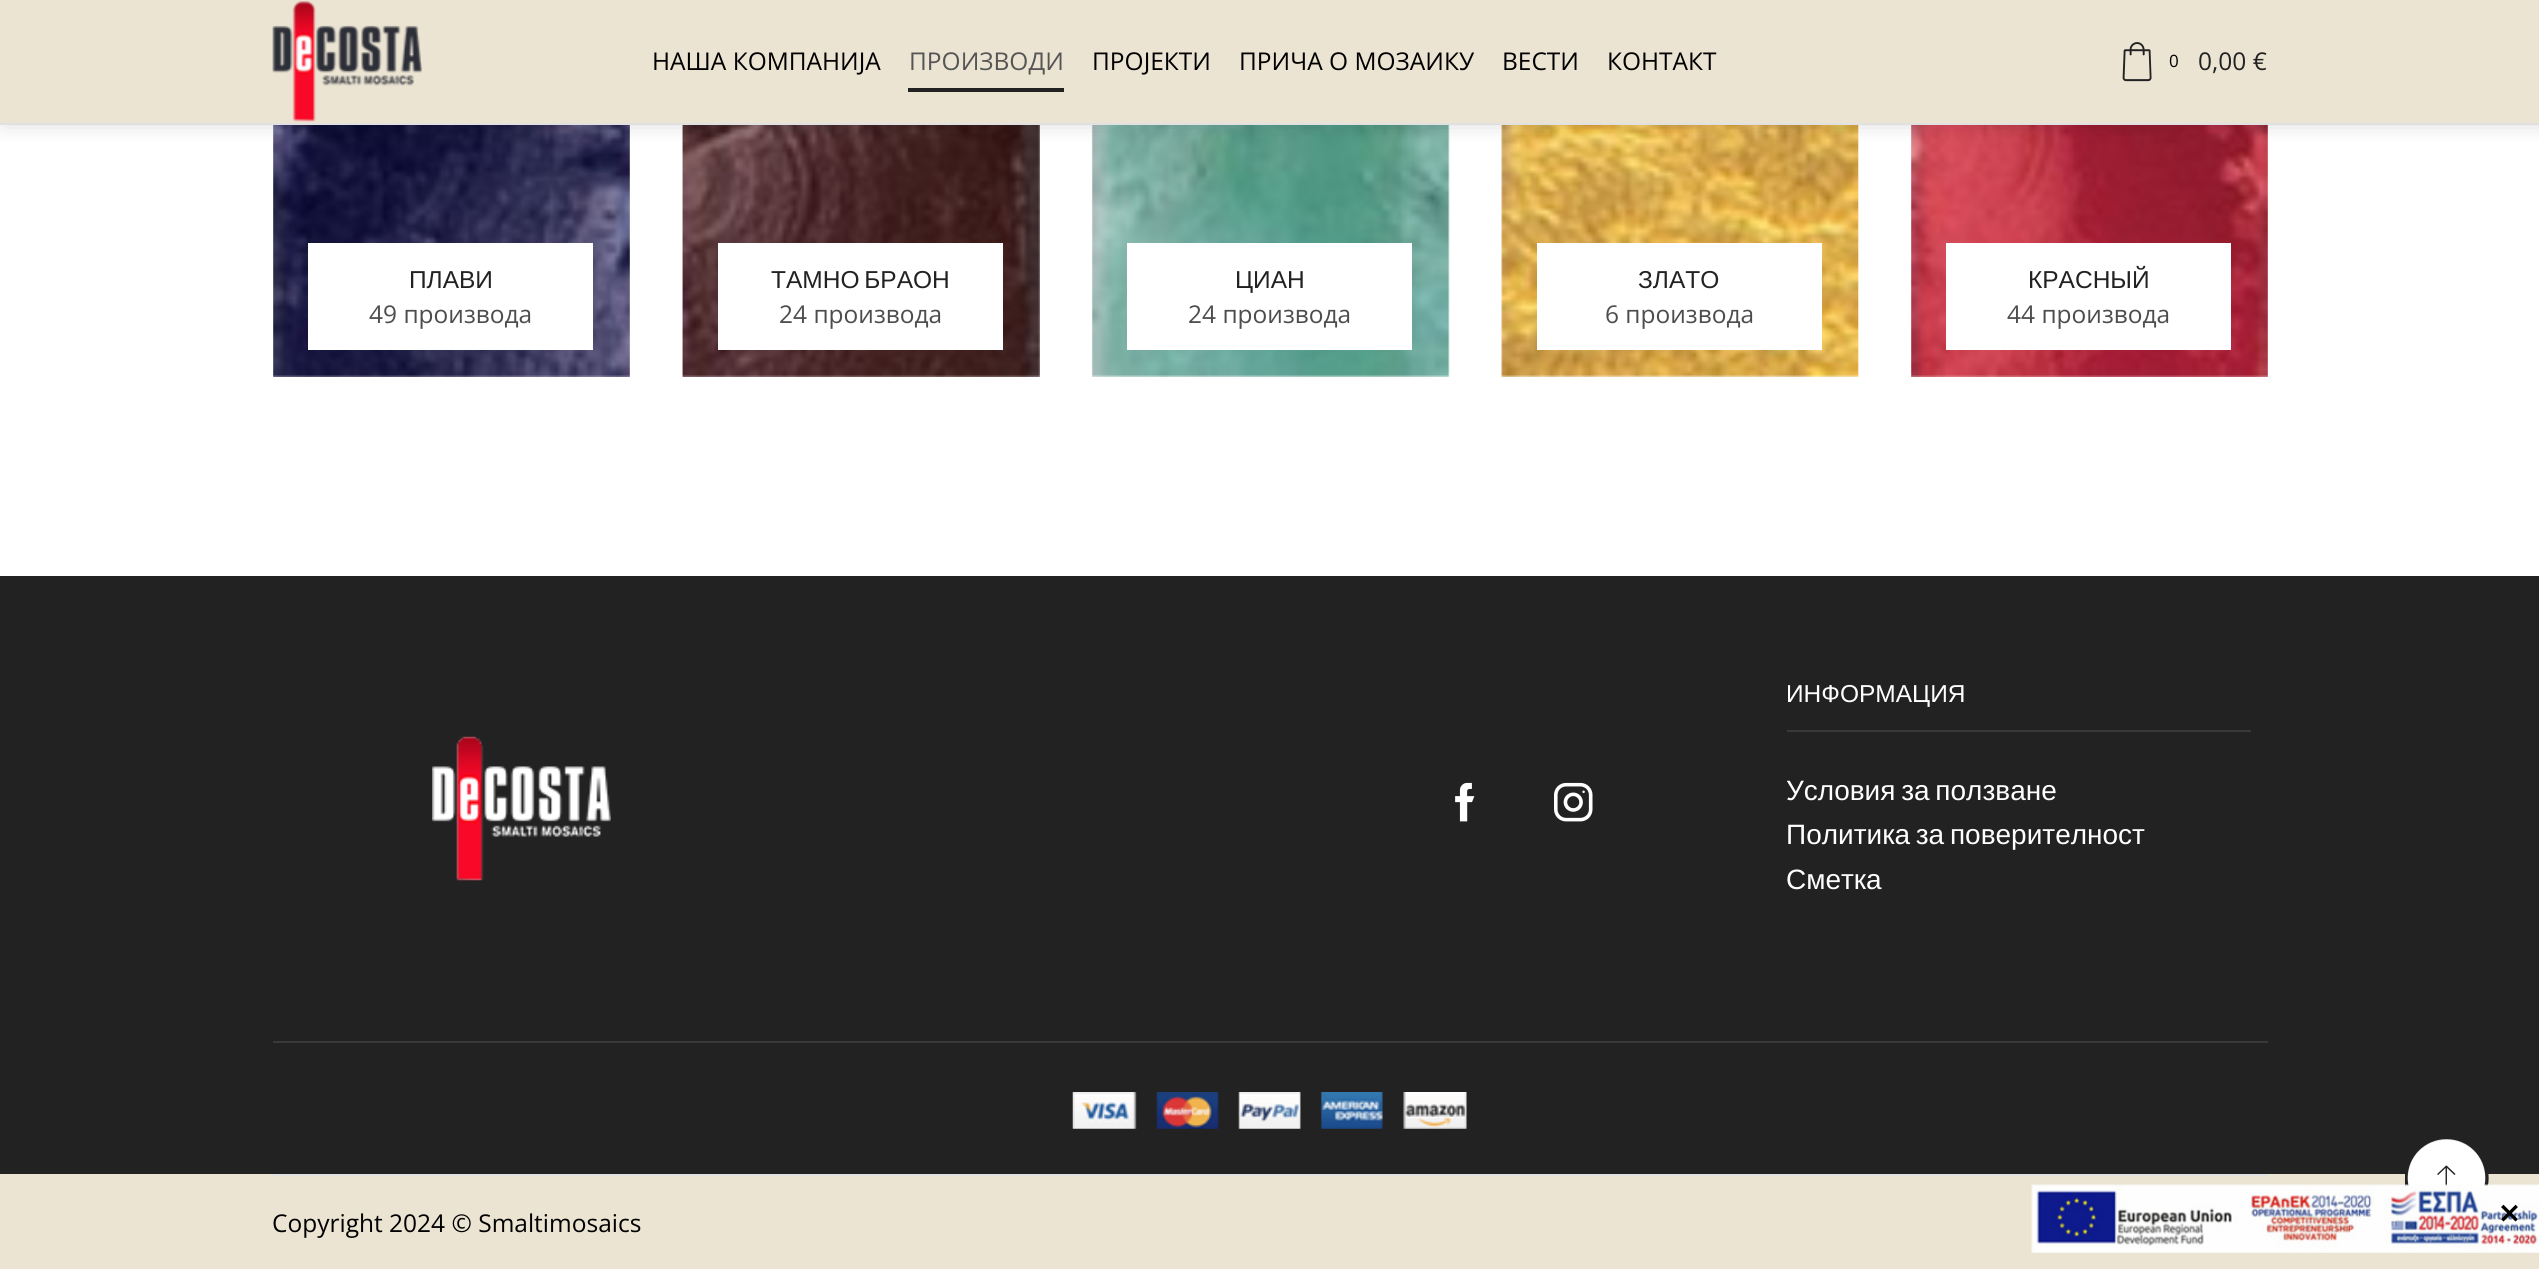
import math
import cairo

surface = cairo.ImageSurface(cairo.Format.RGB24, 2539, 1269)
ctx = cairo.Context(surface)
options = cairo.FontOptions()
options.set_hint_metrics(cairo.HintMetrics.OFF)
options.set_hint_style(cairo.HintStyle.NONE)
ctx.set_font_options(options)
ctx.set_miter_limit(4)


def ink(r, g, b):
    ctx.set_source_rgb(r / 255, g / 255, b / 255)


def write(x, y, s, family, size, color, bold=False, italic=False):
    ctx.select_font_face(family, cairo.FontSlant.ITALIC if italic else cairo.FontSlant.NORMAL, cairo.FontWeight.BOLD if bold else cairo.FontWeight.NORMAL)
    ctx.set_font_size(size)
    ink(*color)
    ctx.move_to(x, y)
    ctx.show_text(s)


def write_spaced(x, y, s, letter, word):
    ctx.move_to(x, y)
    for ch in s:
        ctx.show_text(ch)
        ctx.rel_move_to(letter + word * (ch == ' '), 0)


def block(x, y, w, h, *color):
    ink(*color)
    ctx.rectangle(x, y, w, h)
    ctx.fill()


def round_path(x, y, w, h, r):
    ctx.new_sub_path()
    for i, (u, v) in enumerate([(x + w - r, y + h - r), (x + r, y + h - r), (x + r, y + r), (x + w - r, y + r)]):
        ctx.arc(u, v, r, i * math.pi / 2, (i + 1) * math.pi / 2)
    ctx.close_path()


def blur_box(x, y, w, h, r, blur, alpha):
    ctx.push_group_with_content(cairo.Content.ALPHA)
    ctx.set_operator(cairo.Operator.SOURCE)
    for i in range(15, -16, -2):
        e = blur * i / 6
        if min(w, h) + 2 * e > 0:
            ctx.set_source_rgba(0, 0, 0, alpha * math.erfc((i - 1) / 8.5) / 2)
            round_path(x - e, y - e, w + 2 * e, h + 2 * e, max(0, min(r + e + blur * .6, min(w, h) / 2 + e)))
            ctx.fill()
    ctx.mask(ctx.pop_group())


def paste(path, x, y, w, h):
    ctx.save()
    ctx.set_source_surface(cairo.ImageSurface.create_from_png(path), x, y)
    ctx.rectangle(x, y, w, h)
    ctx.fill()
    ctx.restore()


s1 = dict(family="Open Sans", size=24.5, color=(0, 0, 0))
s2 = dict(family="Open Sans", size=24.5, color=(85, 85, 85))
s3 = dict(family="Open Sans", size=17, color=(0, 0, 0))
s4 = dict(family="Open Sans", size=24.5, color=(34, 34, 34))
s5 = dict(family="Liberation Sans", size=24.5, color=(34, 34, 34))
s6 = dict(family="Open Sans", size=24.5, color=(77, 77, 77))
s7 = dict(family="Liberation Sans", size=24.5, color=(255, 255, 255))
s8 = dict(family="Liberation Sans", size=28, color=(255, 255, 255))
s9 = dict(family="Open Sans", size=35, color=(0, 0, 0), bold=True)

ink(255, 255, 255)
ctx.paint()
paste("pic3.png", 273, 125, 357, 252)
paste("pic4.png", 682, 125, 358, 252)
paste("pic5.png", 1091, 125, 359, 252)
paste("pic6.png", 1501, 125, 358, 252)
paste("pic7.png", 1911, 125, 357, 252)
ink(0, 0, 0)
blur_box(4, 0, 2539, 124, 0, 10.5, 0.15)
block(0, 0, 2539, 123, 235, 228, 211)
block(0, 123, 2539, 2, 225, 225, 225)
paste("pic1.png", 272, 1, 150, 121)
write(652, 70, "НАША КОМПАНИЈА", **s1)
write(909, 70, "ПРОИЗВОДИ", **s2)
block(908, 88, 156, 4, 34, 34, 34)
write(1092, 70, "ПРОЈЕКТИ", **s1)
write(1239, 70, "ПРИЧА О МОЗАИКУ", **s1)
write(1502, 70, "ВЕСТИ", **s1)
write(1607, 70, "КОНТАКТ", **s1)
paste("pic2.png", 2122, 42, 30, 40)
write(2169, 67, "0", **s3)
write(2198, 70, "0,00 €", **s4)
block(308, 243, 285, 107, 255, 255, 255)
write(409, 288, "ПЛАВИ", **s5)
write(369, 323, "49 производа", **s6)
block(718, 243, 285, 107, 255, 255, 255)
ctx.select_font_face("Liberation Sans")
ink(34, 34, 34)
write_spaced(771, 288, "ТАМНО БРАОН", 0, -2)
write(779, 323, "24 производа", **s6)
block(1127, 243, 285, 107, 255, 255, 255)
write(1235, 288, "ЦИАН", **s5)
write(1188, 323, "24 производа", **s6)
block(1537, 243, 285, 107, 255, 255, 255)
write(1638, 288, "ЗЛАТО", **s5)
write(1605, 323, "6 производа", **s6)
block(1946, 243, 285, 107, 255, 255, 255)
write(2028, 288, "КРАСНЫЙ", **s5)
write(2007, 323, "44 производа", **s6)
block(0, 576, 2539, 598, 34, 34, 34)
paste("pic8.png", 432, 736, 179, 145)
paste("pic9.png", 1455, 782, 20, 40)
paste("pic10.png", 1554, 782, 39, 40)
block(1787, 730, 464, 2, 57, 57, 57)
write(1786, 702, "ИНФОРМАЦИЯ", **s7)
ctx.set_font_size(28)
write_spaced(1786, 800, "Условия за ползване", 0, -2)
write_spaced(1786, 844, "Политика за поверителност", 0, -2)
write(1786, 889, "Сметка", **s8)
block(273, 1041, 1995, 2, 57, 57, 57)
paste("pic11.png", 1072, 1092, 395, 37)
block(0, 1174, 2539, 95, 235, 228, 211)
block(273, 1174, 1995, 2, 225, 225, 225)
write(272, 1232, "Copyright 2024 © Smaltimosaics", **s1)
ink(255, 255, 255)
round_path(2407, 1139, 79, 78, 39)
ctx.fill_preserve()
ink(225, 225, 225)
ctx.stroke()
ctx.save()
ctx.rectangle(2405, 1136, 84, 84)
ctx.clip()
ctx.new_path()
ctx.move_to(2446.5, 1137.5)
ctx.curve_to(2469, 1137.5, 2487, 1155.5, 2487, 1178)
ctx.curve_to(2487, 1200, 2469, 1218, 2446.5, 1218)
ctx.curve_to(2424, 1218, 2406, 1200, 2406, 1178)
ctx.curve_to(2406, 1155.5, 2424, 1137.5, 2446.5, 1137.5)
ink(34, 34, 34)
ctx.set_line_width(3.3)
ctx.stroke()
ctx.restore()
paste("pic12.png", 2437, 1165, 19, 21)
paste("pic13.png", 2031, 1184, 508, 69)
write(2499, 1226, "×", **s9)
surface.write_to_png("screenshot.png")
